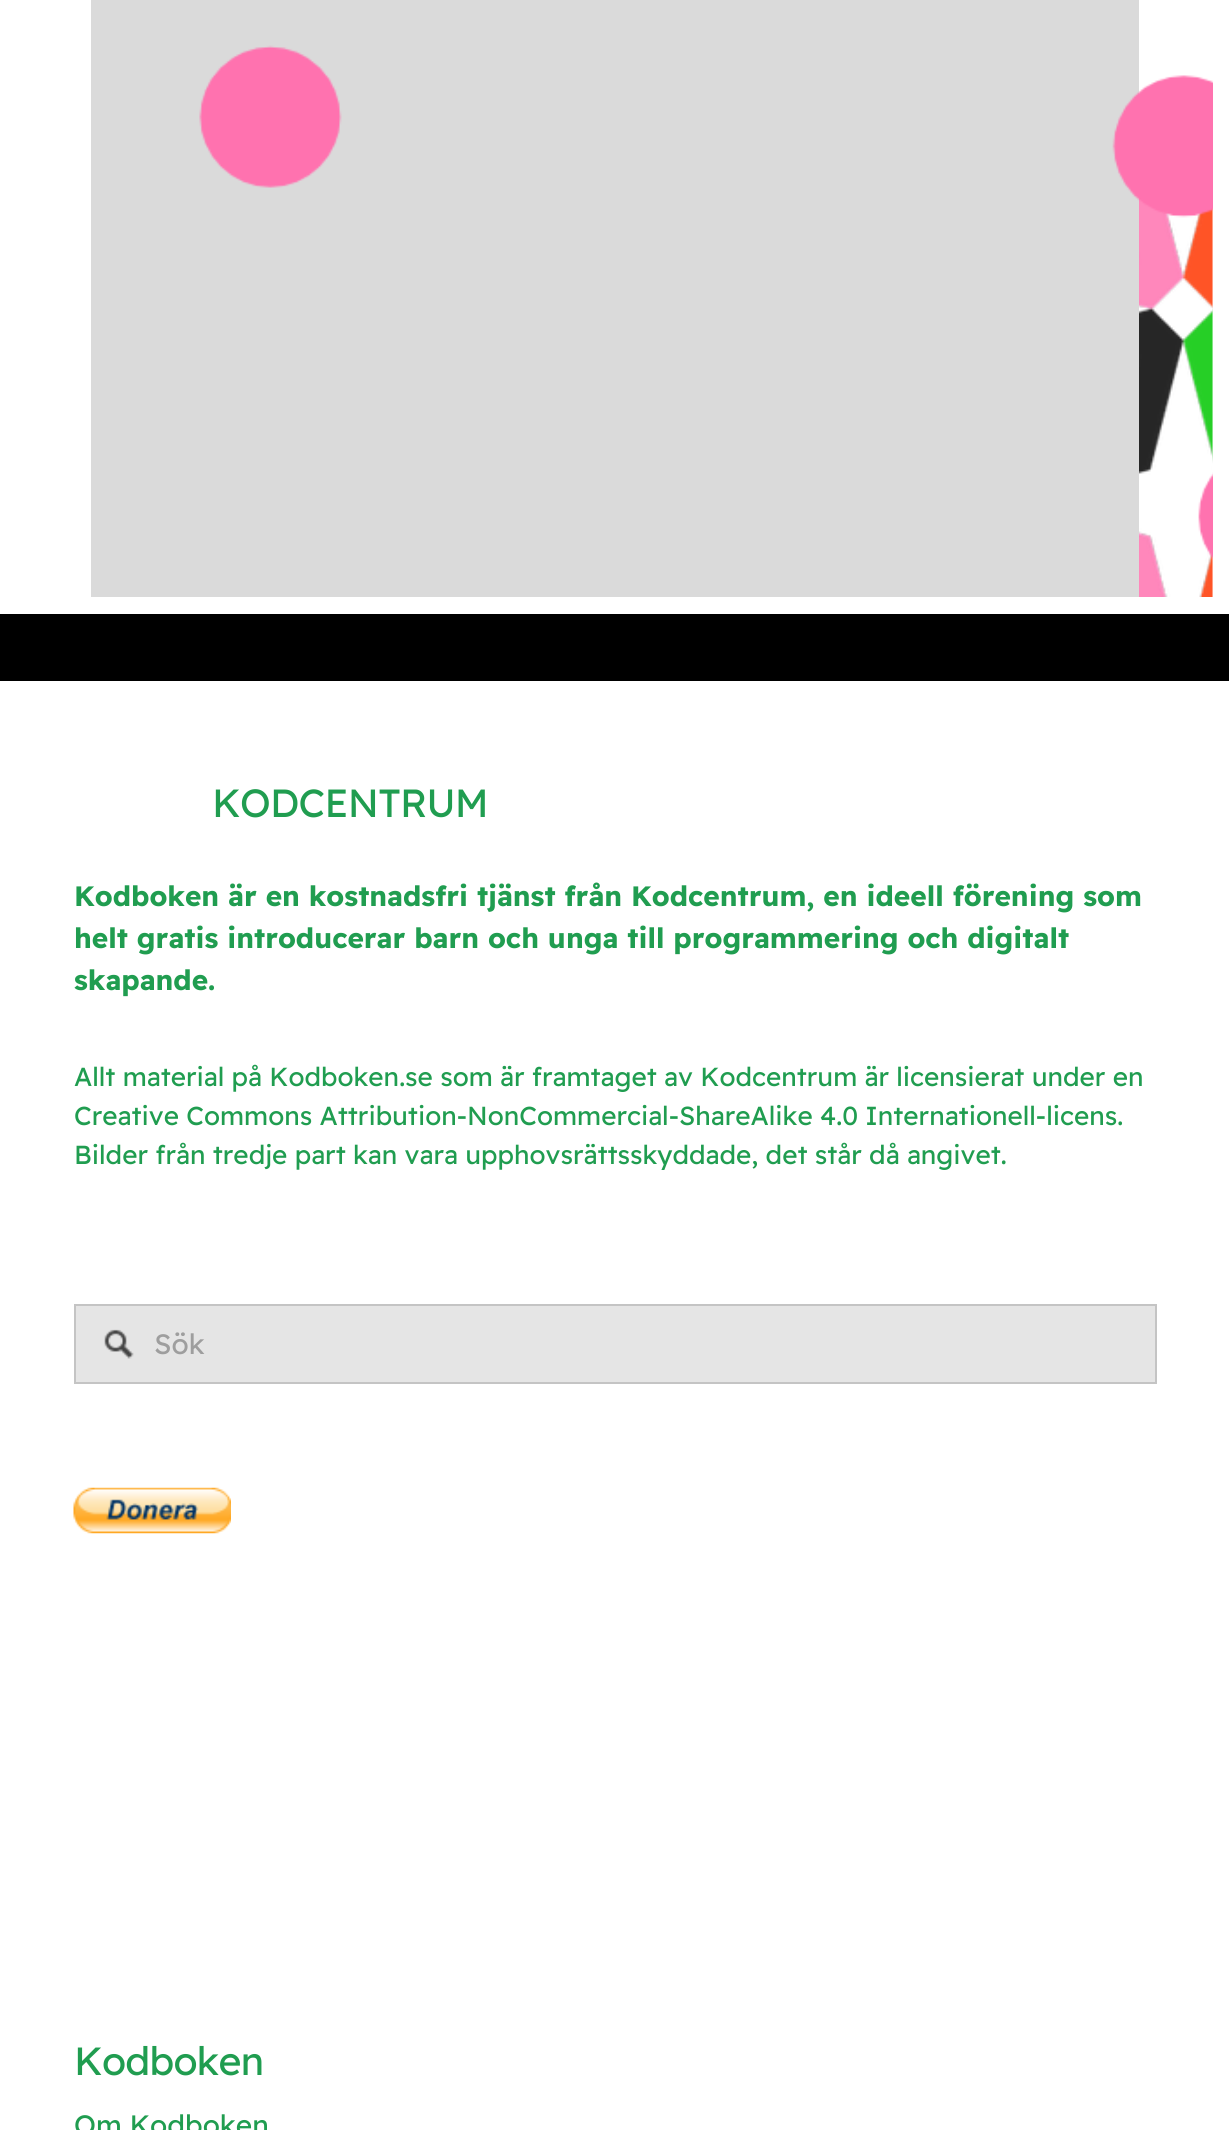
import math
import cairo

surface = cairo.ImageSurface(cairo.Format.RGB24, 1229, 2130)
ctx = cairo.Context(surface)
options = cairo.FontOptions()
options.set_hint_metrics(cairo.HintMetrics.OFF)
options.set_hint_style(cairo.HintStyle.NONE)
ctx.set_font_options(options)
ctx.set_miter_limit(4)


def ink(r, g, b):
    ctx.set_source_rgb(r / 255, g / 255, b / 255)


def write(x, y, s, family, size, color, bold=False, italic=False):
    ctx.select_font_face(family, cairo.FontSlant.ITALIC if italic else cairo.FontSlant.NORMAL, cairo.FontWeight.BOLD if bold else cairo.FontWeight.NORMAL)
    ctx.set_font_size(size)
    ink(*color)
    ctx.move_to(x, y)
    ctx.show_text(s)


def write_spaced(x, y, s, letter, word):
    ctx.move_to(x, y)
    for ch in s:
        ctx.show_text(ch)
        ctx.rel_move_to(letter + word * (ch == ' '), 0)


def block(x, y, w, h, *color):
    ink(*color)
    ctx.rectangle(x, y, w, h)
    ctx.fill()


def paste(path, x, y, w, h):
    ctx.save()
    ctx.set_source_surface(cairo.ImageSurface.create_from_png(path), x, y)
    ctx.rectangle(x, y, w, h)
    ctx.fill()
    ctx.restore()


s1 = dict(family="Readex Pro", size=28, color=(32, 157, 80), bold=True)
s2 = dict(family="Readex Pro", size=26.1, color=(32, 157, 80))
s3 = dict(family="Readex Pro", size=28, color=(158, 158, 158))
s4 = dict(family="Readex Pro", size=28, color=(32, 157, 80))

ink(255, 255, 255)
ctx.paint()
block(91, 0, 1048, 597, 218, 218, 218)
paste("pic2.png", 1139, 197, 74, 400)
paste("pic1.png", 199, 45, 1014, 515)
block(0, 614, 1229, 67, 0, 0, 0)
ctx.select_font_face("Readex Pro")
ctx.set_font_size(39.25)
ink(32, 157, 80)
write_spaced(212, 817, "KODCENTRUM", -0.75, 0)
write(74, 906, "Kodboken är en kostnadsfri tjänst från Kodcentrum, en ideell förening som", **s1)
write(74, 948, "helt gratis introducerar barn och unga till programmering och digitalt", **s1)
write(74, 990, "skapande.", **s1)
write(74, 1086, "Allt material på Kodboken.se som är framtaget av Kodcentrum är licensierat under en", **s2)
write(74, 1125, "Creative Commons Attribution-NonCommercial-ShareAlike 4.0 Internationell-licens.", **s2)
write(74, 1164, "Bilder från tredje part kan vara upphovsrättsskyddade, det står då angivet.", **s2)
block(76, 1306, 1079, 76, 229, 229, 229)
paste("pic3.png", 104, 1329, 30, 30)
ctx.rectangle(75, 1305, 1081, 78)
ink(196, 196, 196)
ctx.stroke()
write(154, 1354, "Sök", **s3)
paste("pic4.png", 73, 1487, 158, 47)
ctx.set_font_size(39.25)
ink(32, 157, 80)
write_spaced(74, 2075, "Kodboken", -0.75, 0)
write(74, 2135, "Om Kodboken", **s4)
surface.write_to_png("screenshot.png")
